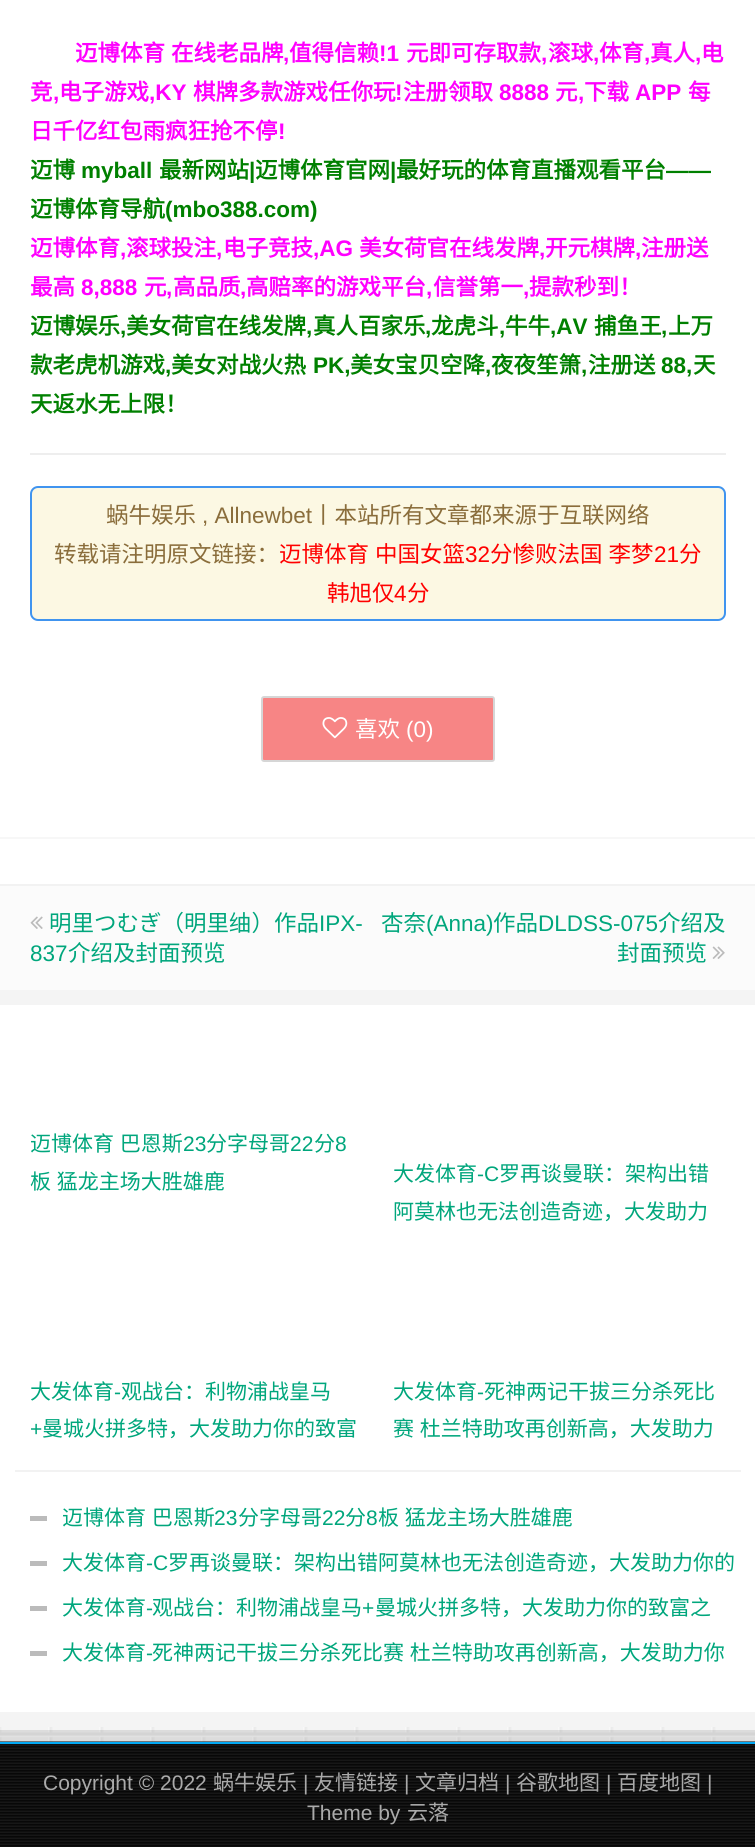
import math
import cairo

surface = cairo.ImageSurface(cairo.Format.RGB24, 755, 1847)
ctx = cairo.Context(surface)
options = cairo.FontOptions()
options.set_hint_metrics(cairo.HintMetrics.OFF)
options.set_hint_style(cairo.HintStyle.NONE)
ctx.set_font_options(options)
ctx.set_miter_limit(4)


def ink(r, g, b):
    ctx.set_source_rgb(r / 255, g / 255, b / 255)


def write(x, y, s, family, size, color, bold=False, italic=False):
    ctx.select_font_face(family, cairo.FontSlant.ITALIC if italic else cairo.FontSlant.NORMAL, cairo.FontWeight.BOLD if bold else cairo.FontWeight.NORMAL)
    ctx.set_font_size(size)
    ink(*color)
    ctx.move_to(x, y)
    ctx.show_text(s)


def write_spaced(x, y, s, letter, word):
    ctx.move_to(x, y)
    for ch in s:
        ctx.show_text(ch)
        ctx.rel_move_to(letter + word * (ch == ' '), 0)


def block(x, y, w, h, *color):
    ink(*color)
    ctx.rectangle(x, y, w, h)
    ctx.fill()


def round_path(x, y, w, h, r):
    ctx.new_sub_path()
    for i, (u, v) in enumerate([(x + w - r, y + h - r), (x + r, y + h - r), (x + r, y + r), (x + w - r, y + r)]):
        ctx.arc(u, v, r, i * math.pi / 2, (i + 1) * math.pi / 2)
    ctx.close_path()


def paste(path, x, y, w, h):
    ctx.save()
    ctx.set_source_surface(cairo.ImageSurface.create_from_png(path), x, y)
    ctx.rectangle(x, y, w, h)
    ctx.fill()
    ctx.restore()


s1 = dict(family="Liberation Sans", size=22.5, color=(255, 0, 255), bold=True)
s2 = dict(family="Noto Sans CJK SC", size=22.5, color=(255, 0, 255), bold=True)
s3 = dict(family="Noto Sans CJK SC", size=22.5, color=(0, 128, 0), bold=True)
s4 = dict(family="Liberation Sans", size=22.5, color=(0, 128, 0), bold=True)
s5 = dict(family="Noto Sans CJK SC", size=22.5, color=(138, 109, 59))
s6 = dict(family="Liberation Sans", size=22.5, color=(138, 109, 59))
s7 = dict(family="Liberation Sans", size=22.5, color=(255, 0, 0))
s8 = dict(family="Noto Sans CJK SC", size=22.5, color=(255, 0, 0))
s9 = dict(family="Noto Sans CJK SC", size=22.5, color=(255, 255, 255))
s10 = dict(family="Liberation Sans", size=22.5, color=(255, 255, 255))
s11 = dict(family="Noto Sans CJK SC", size=22.5, color=(0, 166, 124))
s12 = dict(family="Liberation Sans", size=22.5, color=(0, 166, 124))
s13 = dict(family="Liberation Sans", size=21, color=(0, 166, 124))
s14 = dict(family="Noto Sans CJK SC", size=21, color=(0, 166, 124))
s15 = dict(family="Liberation Sans", size=21, color=(170, 170, 170))
s16 = dict(family="Noto Sans CJK SC", size=21, color=(170, 170, 170))

ink(255, 255, 255)
ctx.paint()
paste("pic1.png", 0, 1727, 755, 15)
block(0, 990, 755, 737, 244, 244, 244)
ctx.select_font_face("Noto Sans CJK SC", cairo.FontSlant.NORMAL, cairo.FontWeight.BOLD)
ctx.set_font_size(22.5)
ink(255, 0, 255)
write_spaced(75, 61, "迈博体育 在线老品牌", 0, 1)
write(283, 61, ",", **s1)
write(289, 61, "值得信赖", **s2)
write(379, 61, "!1", **s1)
write(406, 61, "元即可存取款", **s2)
write(541, 61, ",", **s1)
write(548, 61, "滚球", **s2)
write(593, 61, ",", **s1)
write(599, 61, "体育", **s2)
write(644, 61, ",", **s1)
write(650, 61, "真人", **s2)
write(695, 61, ",", **s1)
write(701, 61, "电", **s2)
write(30, 100, "竞", **s2)
write(53, 100, ",", **s1)
write(59, 100, "电子游戏", **s2)
write(149, 100, ",KY", **s1)
write(193, 100, "棋牌多款游戏任你玩", **s2)
write(395, 100, "!", **s1)
write(403, 100, "注册领取", **s2)
write(499, 100, "8888", **s1)
write(555, 100, "元", **s2)
write(578, 100, ",", **s1)
write(584, 100, "下载", **s2)
write(635, 100, "APP", **s1)
write(688, 100, "每", **s2)
write(30, 139, "日千亿红包雨疯狂抢不停", **s2)
write(278, 139, "!", **s1)
write(30, 178, "迈博", **s3)
write(81, 178, "myball", **s4)
write(159, 178, "最新网站", **s3)
write(249, 178, "|", **s4)
write(255, 178, "迈博体育官网", **s3)
write(390, 178, "|", **s4)
write(396, 178, "最好玩的体育直播观看平台", **s3)
write(666, 178, "——", **s4)
write(30, 217, "迈博体育导航", **s3)
write(165, 217, "(mbo388.com)", **s4)
write(30, 256, "迈博体育", **s2)
write(120, 256, ",", **s1)
write(126, 256, "滚球投注", **s2)
write(216, 256, ",", **s1)
write(223, 256, "电子竞技", **s2)
write(313, 256, ",AG", **s1)
write(359, 256, "美女荷官在线发牌", **s2)
write(539, 256, ",", **s1)
write(545, 256, "开元棋牌", **s2)
write(635, 256, ",", **s1)
write(641, 256, "注册送", **s2)
write(30, 295, "最高", **s2)
write(81, 295, "8,888", **s1)
write(144, 295, "元", **s2)
write(166, 295, ",", **s1)
write(173, 295, "高品质", **s2)
write(240, 295, ",", **s1)
write(246, 295, "高赔率的游戏平台", **s2)
write(426, 295, ",", **s1)
write(433, 295, "信誉第一", **s2)
write(523, 295, ",", **s1)
write(529, 295, "提款秒到！", **s2)
write(30, 334, "迈博娱乐", **s3)
write(120, 334, ",", **s4)
write(126, 334, "美女荷官在线发牌", **s3)
write(306, 334, ",", **s4)
write(313, 334, "真人百家乐", **s3)
write(425, 334, ",", **s4)
write(431, 334, "龙虎斗", **s3)
write(499, 334, ",", **s4)
write(505, 334, "牛牛", **s3)
write(550, 334, ",AV", **s4)
write(594, 334, "捕鱼王", **s3)
write(661, 334, ",", **s4)
write(668, 334, "上万", **s3)
write(30, 373, "款老虎机游戏", **s3)
write(165, 373, ",", **s4)
write(171, 373, "美女对战火热", **s3)
write(313, 373, "PK,", **s4)
write(350, 373, "美女宝贝空降", **s3)
write(485, 373, ",", **s4)
write(491, 373, "夜夜笙箫", **s3)
write(581, 373, ",", **s4)
write(588, 373, "注册送", **s3)
write(661, 373, "88,", **s4)
write(693, 373, "天", **s3)
write(30, 412, "天返水无上限！", **s3)
block(30, 453, 696, 2, 238, 238, 238)
ink(252, 248, 227)
round_path(31, 487, 694, 133, 7)
ctx.fill_preserve()
ink(64, 148, 239)
ctx.stroke()
write(106, 523, "蜗牛娱乐", **s5)
write(202, 523, ", Allnewbet", **s6)
write(312, 523, "丨本站所有文章都来源于互联网络", **s5)
write(54, 562, "转载请注明原文链接：", **s5)
ink(255, 0, 0)
write_spaced(279, 562, "迈博体育 中国女篮", 0, 1)
write(465, 562, "32", **s7)
ctx.select_font_face("Noto Sans CJK SC")
write_spaced(490, 562, "分惨败法国 李梦", 0, 1)
write(654, 562, "21", **s7)
write(679, 562, "分", **s8)
write(327, 601, "韩旭仅", **s8)
write(394, 601, "4", **s7)
write(407, 601, "分", **s8)
ink(247, 133, 133)
round_path(262, 697, 232, 64, 2)
ctx.fill_preserve()
ink(214, 214, 214)
ctx.stroke()
paste("pic2.png", 322, 717, 26, 22)
write(355, 737, "喜欢", **s9)
write(406, 737, "(0)", **s10)
block(0, 837, 755, 2, 247, 247, 247)
block(0, 886, 755, 104, 251, 251, 251)
block(0, 884, 755, 2, 242, 242, 242)
paste("pic3.png", 30, 916, 13, 13)
write(49, 931, "明里つむぎ（明里䌷）作品", **s11)
write(319, 931, "IPX-", **s12)
write(30, 961, "837", **s12)
write(68, 961, "介绍及封面预览", **s11)
write(381, 931, "杏奈", **s11)
write(426, 931, "(Anna)", **s12)
write(493, 931, "作品", **s11)
write(538, 931, "DLDSS-075", **s12)
write(658, 931, "介绍及", **s11)
write(617, 961, "封面预览", **s11)
paste("pic4.png", 712, 946, 13, 13)
block(0, 1005, 755, 707, 255, 255, 255)
ctx.set_font_size(21)
ink(0, 166, 124)
write_spaced(30, 1151, "迈博体育 巴恩斯", 0, 1)
write(183, 1151, "23", **s13)
write(206, 1151, "分字母哥", **s14)
write(290, 1151, "22", **s13)
write(314, 1151, "分", **s14)
write(335, 1151, "8", **s13)
ctx.select_font_face("Noto Sans CJK SC")
write_spaced(30, 1189, "板 猛龙主场大胜雄鹿", 0, 1)
write(393, 1181, "大发体育", **s14)
write(477, 1181, "-C", **s13)
write(499, 1181, "罗再谈曼联：架构出错", **s14)
write(393, 1219, "阿莫林也无法创造奇迹，大发助力", **s14)
write(30, 1399, "大发体育", **s14)
write(114, 1399, "-", **s13)
write(121, 1399, "观战台：利物浦战皇马", **s14)
write(30, 1436, "+", **s13)
write(42, 1436, "曼城火拼多特，大发助力你的致富", **s14)
write(393, 1399, "大发体育", **s14)
write(477, 1399, "-", **s13)
write(484, 1399, "死神两记干拔三分杀死比", **s14)
write_spaced(393, 1436, "赛 杜兰特助攻再创新高，大发助力", 0, 1)
block(15, 1470, 726, 2, 242, 242, 242)
block(30, 1516, 17, 5, 187, 187, 187)
ink(0, 166, 124)
write_spaced(62, 1525, "迈博体育 巴恩斯", 0, 1)
write(214, 1525, "23", **s13)
write(238, 1525, "分字母哥", **s14)
write(322, 1525, "22", **s13)
write(345, 1525, "分", **s14)
write(366, 1525, "8", **s13)
ctx.select_font_face("Noto Sans CJK SC")
write_spaced(378, 1525, "板 猛龙主场大胜雄鹿", 0, 1)
block(30, 1561, 17, 5, 187, 187, 187)
write(62, 1570, "大发体育", **s14)
write(146, 1570, "-C", **s13)
write(168, 1570, "罗再谈曼联：架构出错阿莫林也无法创造奇迹，大发助力你的", **s14)
block(30, 1606, 17, 5, 187, 187, 187)
write(62, 1615, "大发体育", **s14)
write(146, 1615, "-", **s13)
write(152, 1615, "观战台：利物浦战皇马", **s14)
write(362, 1615, "+", **s13)
write(375, 1615, "曼城火拼多特，大发助力你的致富之", **s14)
block(30, 1651, 17, 5, 187, 187, 187)
write(62, 1660, "大发体育", **s14)
write(146, 1660, "-", **s13)
ctx.select_font_face("Noto Sans CJK SC")
write_spaced(152, 1660, "死神两记干拔三分杀死比赛 杜兰特助攻再创新高，大发助力你", 0, 1)
ctx.set_source_rgba(0, 0, 0, 0.1)
ctx.rectangle(0, 1730, 755, 12)
ctx.fill()
paste("pic5.png", 0, 1741, 755, 106)
block(0, 1742, 755, 2, 3, 169, 244)
write(43, 1790, "Copyright © 2022", **s15)
write(213, 1790, "蜗牛娱乐", **s16)
write(303, 1790, "|", **s15)
write(314, 1790, "友情链接", **s16)
write(404, 1790, "|", **s15)
write(415, 1790, "文章归档", **s16)
write(505, 1790, "|", **s15)
write(516, 1790, "谷歌地图", **s16)
write(606, 1790, "|", **s15)
write(617, 1790, "百度地图", **s16)
write(707, 1790, "|", **s15)
write(307, 1820, "Theme by", **s15)
write(407, 1820, "云落", **s16)
surface.write_to_png("screenshot.png")
